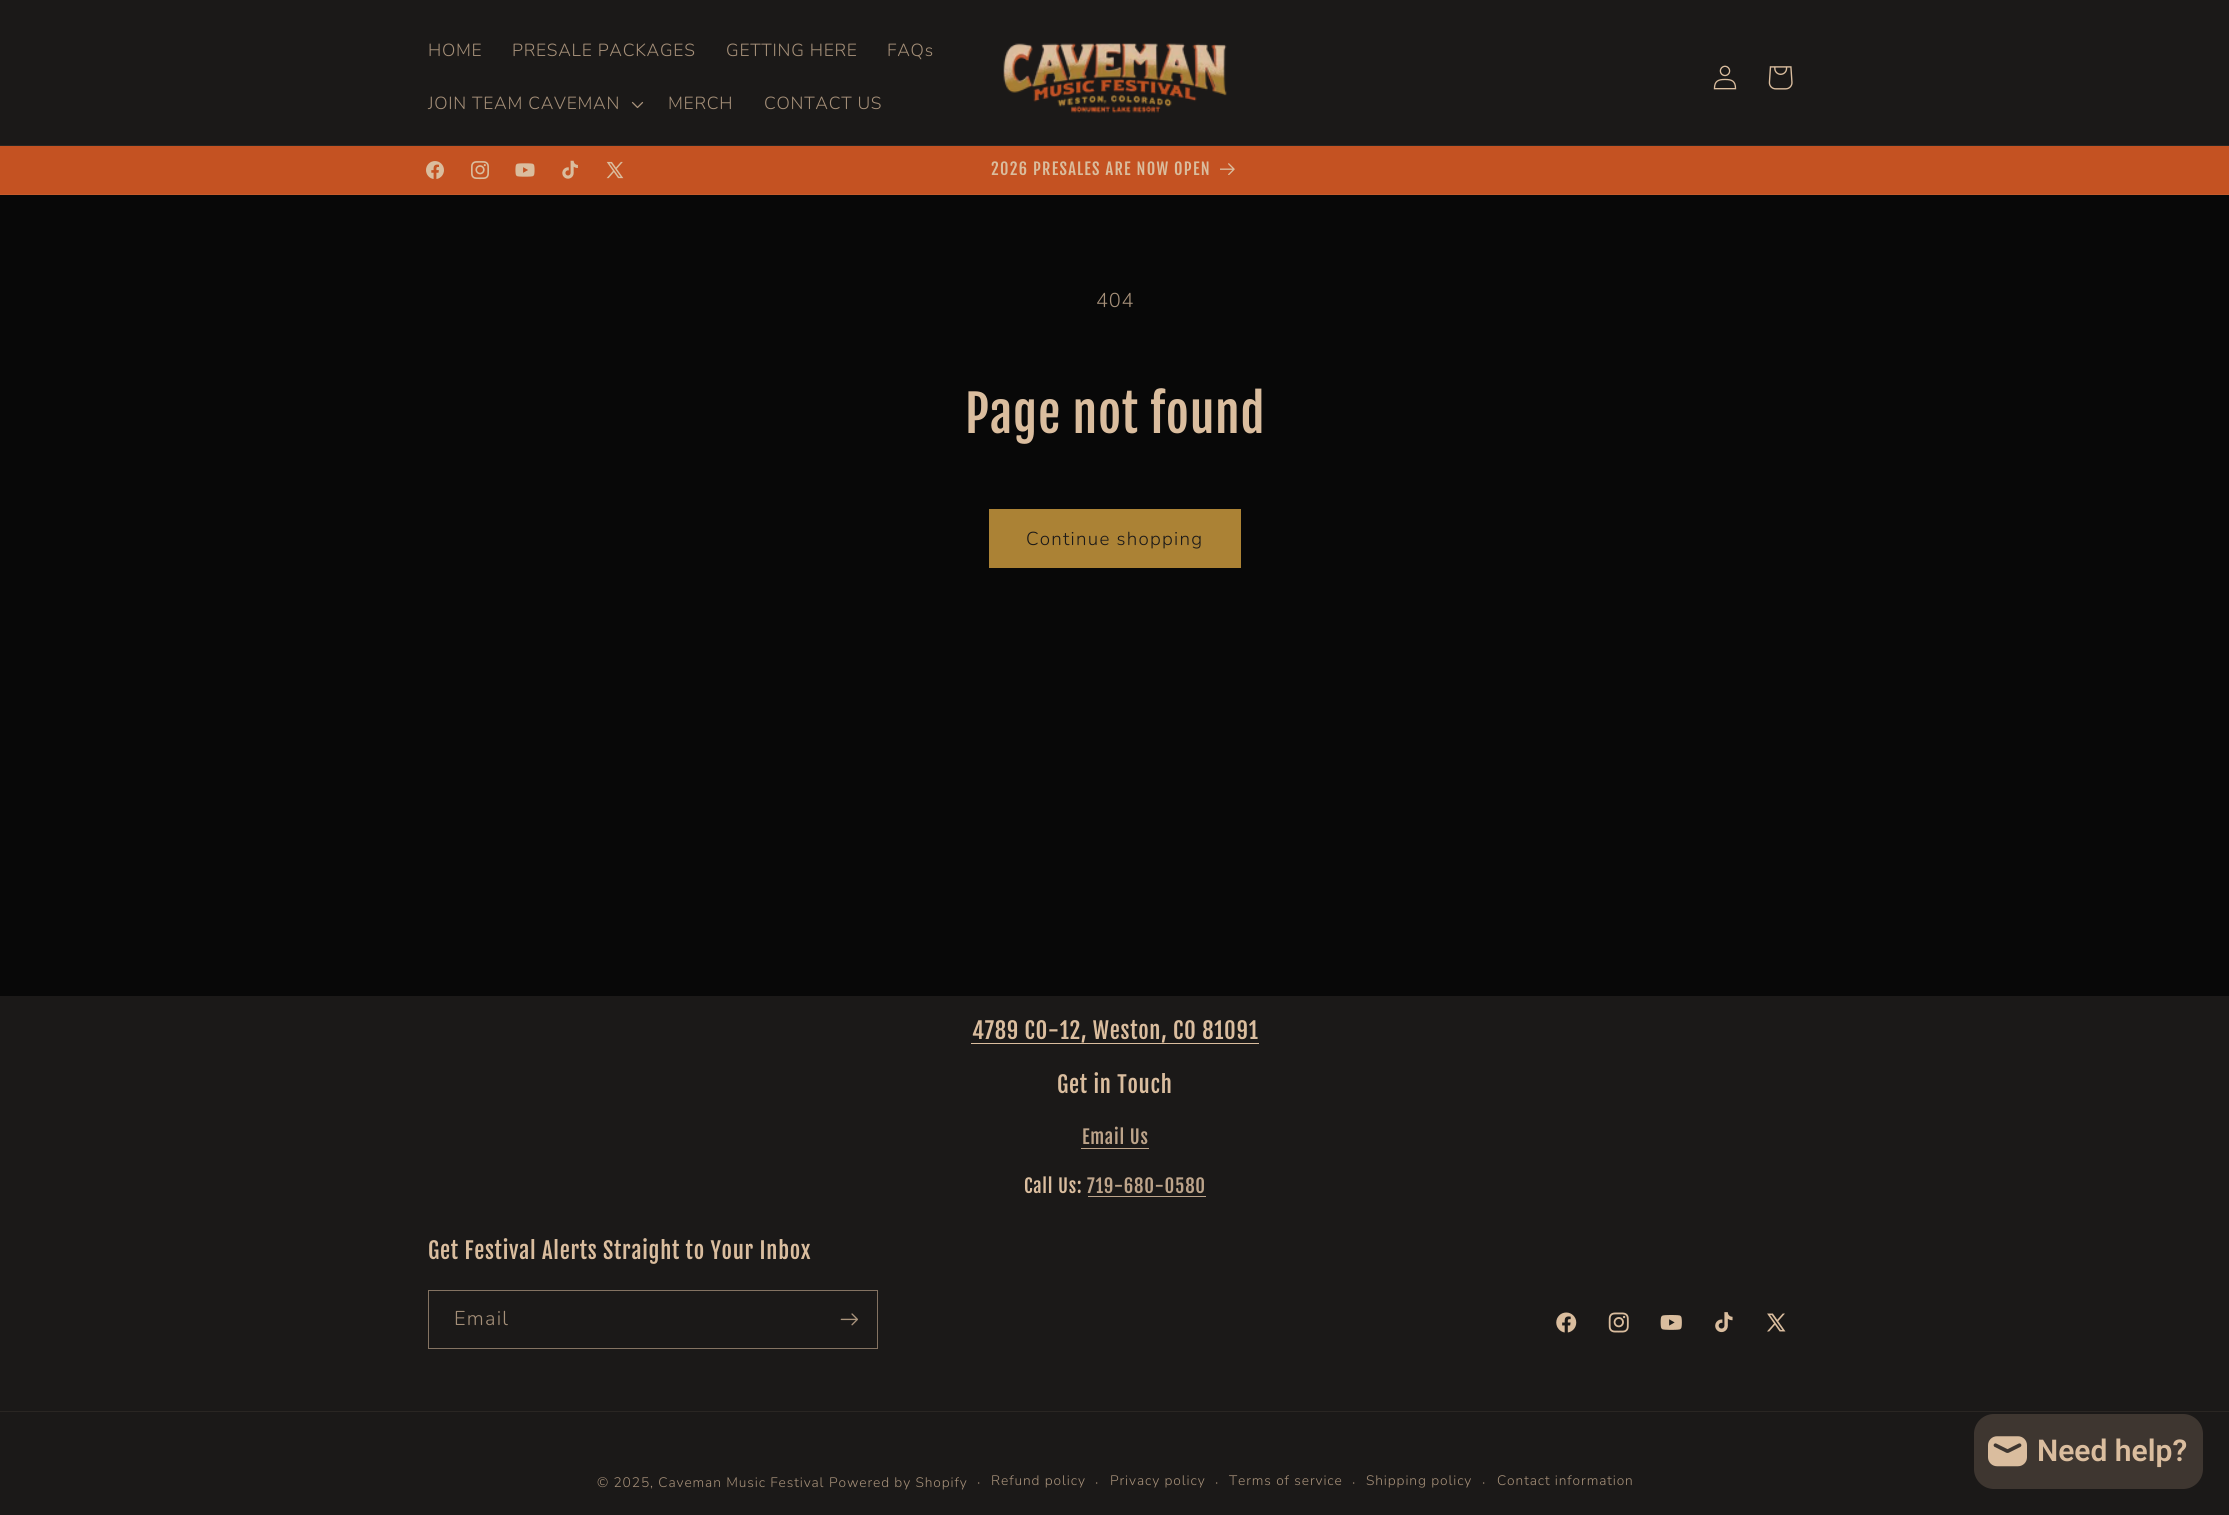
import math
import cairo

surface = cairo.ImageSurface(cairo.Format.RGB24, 2229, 1515)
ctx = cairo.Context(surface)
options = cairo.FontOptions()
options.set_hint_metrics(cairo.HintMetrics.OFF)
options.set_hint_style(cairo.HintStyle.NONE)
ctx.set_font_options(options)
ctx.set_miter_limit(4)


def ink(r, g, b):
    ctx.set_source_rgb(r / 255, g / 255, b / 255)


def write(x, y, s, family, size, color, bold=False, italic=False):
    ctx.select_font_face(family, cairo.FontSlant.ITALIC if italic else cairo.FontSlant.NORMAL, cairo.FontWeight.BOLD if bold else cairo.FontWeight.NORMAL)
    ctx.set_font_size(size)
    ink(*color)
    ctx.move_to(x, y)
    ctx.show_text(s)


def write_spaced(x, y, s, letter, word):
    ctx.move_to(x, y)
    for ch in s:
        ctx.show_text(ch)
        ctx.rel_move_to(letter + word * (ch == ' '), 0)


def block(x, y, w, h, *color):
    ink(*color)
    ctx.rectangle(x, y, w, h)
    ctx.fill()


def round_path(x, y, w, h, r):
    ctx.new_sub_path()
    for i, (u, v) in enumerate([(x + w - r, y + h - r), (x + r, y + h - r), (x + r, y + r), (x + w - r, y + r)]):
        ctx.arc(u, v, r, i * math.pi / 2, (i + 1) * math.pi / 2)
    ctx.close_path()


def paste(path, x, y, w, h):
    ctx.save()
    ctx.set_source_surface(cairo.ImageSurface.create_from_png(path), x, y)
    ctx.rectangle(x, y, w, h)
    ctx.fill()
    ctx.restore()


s1 = dict(family="Roboto SemiBold", size=30, color=(218, 189, 158))

ink(8, 8, 8)
ctx.paint()
block(0, 0, 2229, 145, 27, 25, 24)
block(0, 145, 2229, 1, 42, 38, 35)
ctx.select_font_face("Nunito Light")
ctx.set_font_size(17.5)
ink(166, 144, 121)
write_spaced(428, 56, "HOME", 0.75, 0)
write_spaced(512, 56, "PRESALE PACKAGES", 0.75, 0)
write_spaced(726, 56, "GETTING HERE", 0.75, 0)
write_spaced(887, 56, "FAQs", 0.75, 0)
write_spaced(428, 109, "JOIN TEAM CAVEMAN", 0.75, 0)
paste("pic1.png", 631, 101, 13, 8)
write_spaced(668, 109, "MERCH", 0.75, 0)
write_spaced(764, 109, "CONTACT US", 0.75, 0)
paste("pic2.png", 1003, 43, 224, 70)
paste("pic3.png", 1713, 65, 24, 25)
paste("pic4.png", 1768, 66, 25, 24)
block(0, 146, 2229, 48, 196, 82, 34)
block(0, 194, 2229, 1, 198, 91, 44)
paste("pic5.png", 426, 161, 18, 18)
paste("pic6.png", 471, 161, 18, 19)
paste("pic7.png", 515, 163, 20, 14)
paste("pic8.png", 562, 160, 16, 19)
paste("pic9.png", 606, 161, 18, 18)
ctx.select_font_face("Fjalla One")
ctx.set_font_size(16.25)
ink(218, 189, 158)
write_spaced(991, 175, "2026 PRESALES ARE NOW OPEN", 1.25, 0)
paste("pic10.png", 1220, 163, 15, 12)
ctx.select_font_face("Nunito Light")
ctx.set_font_size(20)
ink(166, 144, 121)
write_spaced(1096, 307, "404", 0.75, 0)
ctx.select_font_face("Fjalla One")
ctx.set_font_size(50)
ink(218, 189, 158)
write_spaced(965, 433, "Page not found", 0.75, 0)
block(989, 509, 252, 59, 171, 130, 53)
ctx.select_font_face("Nunito Light")
ctx.set_font_size(18.75)
ink(27, 25, 24)
write_spaced(1026, 545, "Continue shopping", 1.25, 0)
block(0, 996, 2229, 519, 27, 25, 24)
ctx.select_font_face("Fjalla One")
ctx.set_font_size(22.5)
ink(218, 189, 158)
write_spaced(972, 1039, "4789 CO-12, Weston, CO 81091", 0.75, 0)
block(971, 1043, 288, 1, 218, 189, 158)
write_spaced(1057, 1093, "Get in Touch", 0.75, 0)
ctx.set_font_size(18.75)
ink(189, 164, 138)
write_spaced(1082, 1144, "Email Us", 0.75, 0)
block(1081, 1148, 68, 1, 189, 164, 138)
ink(218, 189, 158)
write_spaced(1024, 1193, "Call Us:", 0.75, 0)
ink(189, 164, 138)
write_spaced(1087, 1193, "719-680-0580", 0.75, 0)
block(1088, 1196, 118, 1, 189, 164, 138)
ctx.set_font_size(22.5)
ink(218, 189, 158)
write_spaced(428, 1259, "Get Festival Alerts Straight to Your Inbox", 0.75, 0)
ctx.rectangle(428.5, 1290.5, 449, 58)
ink(132, 115, 98)
ctx.set_line_width(1)
ctx.stroke()
ctx.select_font_face("Nunito Light")
ctx.set_font_size(20)
ink(166, 144, 121)
write_spaced(454, 1325, "Email", 1.25, 0)
paste("pic11.png", 840, 1313, 18, 13)
paste("pic12.png", 1556, 1312, 21, 21)
paste("pic13.png", 1608, 1312, 21, 21)
paste("pic14.png", 1660, 1315, 22, 15)
paste("pic15.png", 1715, 1312, 18, 21)
paste("pic16.png", 1767, 1313, 19, 19)
block(0, 1411, 2229, 1, 42, 38, 35)
ctx.set_font_size(13.75)
ink(166, 144, 121)
write_spaced(597, 1487, "© 2025, Caveman Music Festival", 0.9, 0)
write_spaced(829, 1487, "Powered by Shopify", 0.9, 0)
ctx.set_font_size(15)
write_spaced(977, 1487, "·", 0.9, 0)
ctx.set_font_size(13.75)
write_spaced(991, 1485, "Refund policy", 0.9, 0)
ctx.set_font_size(15)
write_spaced(1095, 1487, "·", 0.9, 0)
ctx.set_font_size(13.75)
write_spaced(1110, 1485, "Privacy policy", 0.9, 0)
ctx.set_font_size(15)
write_spaced(1215, 1487, "·", 0.9, 0)
ctx.set_font_size(13.75)
write_spaced(1229, 1485, "Terms of service", 0.9, 0)
ctx.set_font_size(15)
write_spaced(1352, 1487, "·", 0.9, 0)
ctx.set_font_size(13.75)
write_spaced(1366, 1485, "Shipping policy", 0.9, 0)
ctx.set_font_size(15)
write_spaced(1482, 1487, "·", 0.9, 0)
ctx.set_font_size(13.75)
write_spaced(1497, 1485, "Contact information", 0.9, 0)
ink(62, 54, 48)
round_path(1974, 1414, 229, 75, 20)
ctx.fill()
paste("pic17.png", 1988, 1436, 39, 31)
write(2037, 1461, "Need help?", **s1)
surface.write_to_png("screenshot.png")
